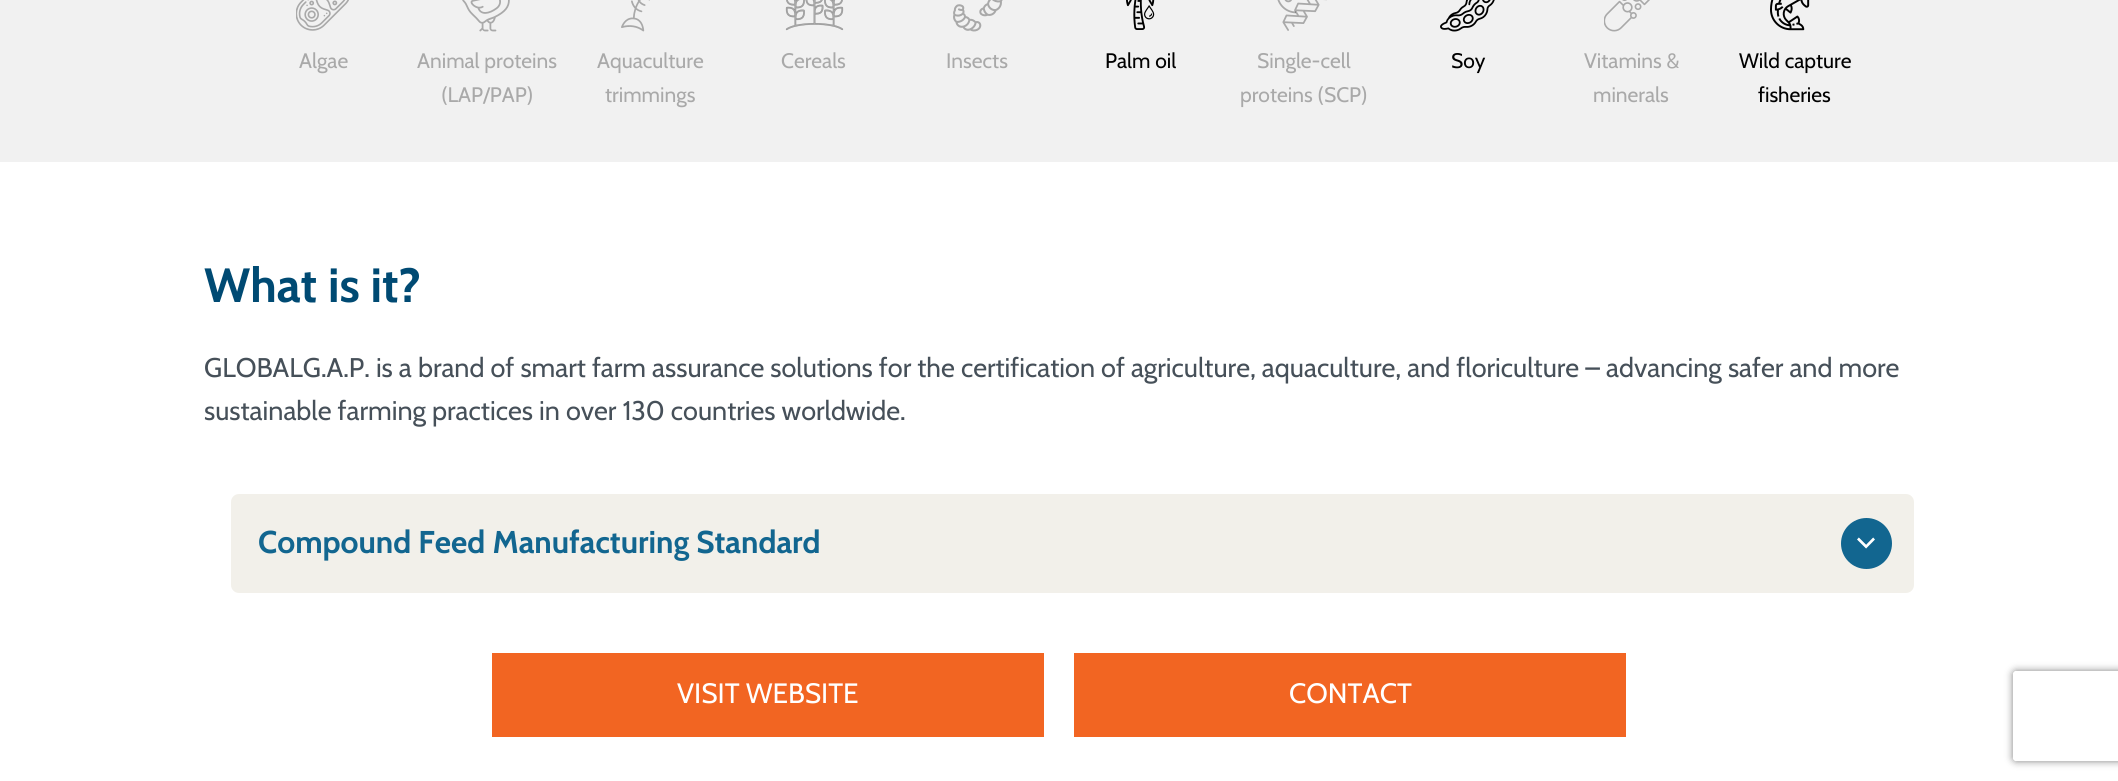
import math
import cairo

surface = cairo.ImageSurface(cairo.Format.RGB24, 2118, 781)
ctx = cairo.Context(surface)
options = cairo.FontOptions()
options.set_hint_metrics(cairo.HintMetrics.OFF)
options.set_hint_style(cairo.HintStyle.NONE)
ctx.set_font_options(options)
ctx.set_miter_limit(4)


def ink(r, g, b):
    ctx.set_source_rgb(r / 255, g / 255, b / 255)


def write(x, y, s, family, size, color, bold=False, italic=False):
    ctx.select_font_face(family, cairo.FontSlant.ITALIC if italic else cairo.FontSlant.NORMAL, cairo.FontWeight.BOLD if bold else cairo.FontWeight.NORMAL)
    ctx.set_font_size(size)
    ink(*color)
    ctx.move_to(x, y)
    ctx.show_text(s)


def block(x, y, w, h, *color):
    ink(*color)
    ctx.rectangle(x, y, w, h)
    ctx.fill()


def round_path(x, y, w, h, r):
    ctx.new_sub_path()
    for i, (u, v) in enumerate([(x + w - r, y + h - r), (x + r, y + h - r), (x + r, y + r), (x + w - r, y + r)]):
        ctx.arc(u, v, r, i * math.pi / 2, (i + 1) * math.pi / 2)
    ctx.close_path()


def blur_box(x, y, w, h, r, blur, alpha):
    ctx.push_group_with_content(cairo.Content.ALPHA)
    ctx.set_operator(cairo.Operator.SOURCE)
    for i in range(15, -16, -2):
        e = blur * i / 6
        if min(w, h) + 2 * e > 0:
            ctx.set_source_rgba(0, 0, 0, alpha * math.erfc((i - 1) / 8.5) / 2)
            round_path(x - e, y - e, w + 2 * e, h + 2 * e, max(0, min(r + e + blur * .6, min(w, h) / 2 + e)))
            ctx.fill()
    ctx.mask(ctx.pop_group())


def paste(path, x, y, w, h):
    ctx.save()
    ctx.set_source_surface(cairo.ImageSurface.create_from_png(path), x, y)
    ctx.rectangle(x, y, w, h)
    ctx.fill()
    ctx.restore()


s1 = dict(family="Cabin", size=21, color=(169, 169, 169))
s2 = dict(family="Cabin", size=21, color=(0, 0, 0))
s3 = dict(family="Cabin", size=48, color=(0, 74, 115), bold=True)
s4 = dict(family="Cabin", size=27, color=(70, 80, 89))
s5 = dict(family="Cabin", size=31.5, color=(18, 102, 144), bold=True)
s6 = dict(family="Cabin", size=28, color=(255, 255, 255))

ink(255, 255, 255)
ctx.paint()
block(0, 0, 2118, 162, 241, 241, 241)
paste("pic1.png", 296, 0, 53, 31)
write(299, 68, "Algae", **s1)
paste("pic2.png", 462, 0, 48, 32)
write(417, 68, "Animal proteins", **s1)
write(441, 102, "(LAP/PAP)", **s1)
paste("pic3.png", 621, 0, 29, 32)
write(597, 68, "Aquaculture", **s1)
write(605, 102, "trimmings", **s1)
paste("pic4.png", 785, 0, 59, 31)
write(781, 68, "Cereals", **s1)
paste("pic5.png", 953, 0, 50, 32)
write(946, 68, "Insects", **s1)
paste("pic6.png", 1126, 0, 29, 30)
write(1105, 68, "Palm oil", **s2)
paste("pic7.png", 1277, 0, 50, 31)
write(1257, 68, "Single-cell", **s1)
write(1240, 102, "proteins (SCP)", **s1)
paste("pic8.png", 1440, 0, 55, 32)
write(1451, 68, "Soy", **s2)
paste("pic9.png", 1604, 0, 46, 32)
write(1584, 68, "Vitamins &", **s1)
write(1593, 102, "minerals", **s1)
paste("pic10.png", 1770, 0, 40, 31)
write(1739, 68, "Wild capture", **s2)
write(1758, 102, "fisheries", **s2)
write(204, 302, "What is it?", **s3)
write(204, 377, "GLOBALG.A.P. is a brand of smart farm assurance solutions for the certification of agriculture, aquaculture, and floriculture – advancing safer and more", **s4)
write(204, 420, "sustainable farming practices in over 130 countries worldwide.", **s4)
ink(242, 240, 234)
round_path(231, 494, 1683, 99, 8)
ctx.fill()
write(258, 553, "Compound Feed Manufacturing Standard", **s5)
ctx.new_path()
ctx.arc(1866.5, 543.5, 25.5, 0, 2 * math.pi)
ctx.fill()
paste("pic11.png", 1857, 537, 18, 12)
block(492, 653, 552, 84, 242, 101, 34)
write(677, 703, "VISIT WEBSITE", **s6)
block(1074, 653, 552, 84, 242, 101, 34)
write(1289, 703, "CONTACT", **s6)
ctx.save()
ctx.set_fill_rule(cairo.FillRule.EVEN_ODD)
ctx.new_path()
ctx.move_to(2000, 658)
ctx.line_to(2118, 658)
ctx.line_to(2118, 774)
ctx.line_to(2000, 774)
ctx.close_path()
ctx.move_to(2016, 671)
ctx.line_to(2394, 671)
ctx.curve_to(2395.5, 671, 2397, 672.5, 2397, 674)
ctx.line_to(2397, 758)
ctx.curve_to(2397, 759.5, 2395.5, 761, 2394, 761)
ctx.line_to(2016, 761)
ctx.curve_to(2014.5, 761, 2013, 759.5, 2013, 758)
ctx.line_to(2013, 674)
ctx.curve_to(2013, 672.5, 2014.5, 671, 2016, 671)
ctx.close_path()
ctx.clip()
ink(128, 128, 128)
blur_box(2013, 671, 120, 90, 3, 4, 1)
ctx.restore()
surface.write_to_png("screenshot.png")
